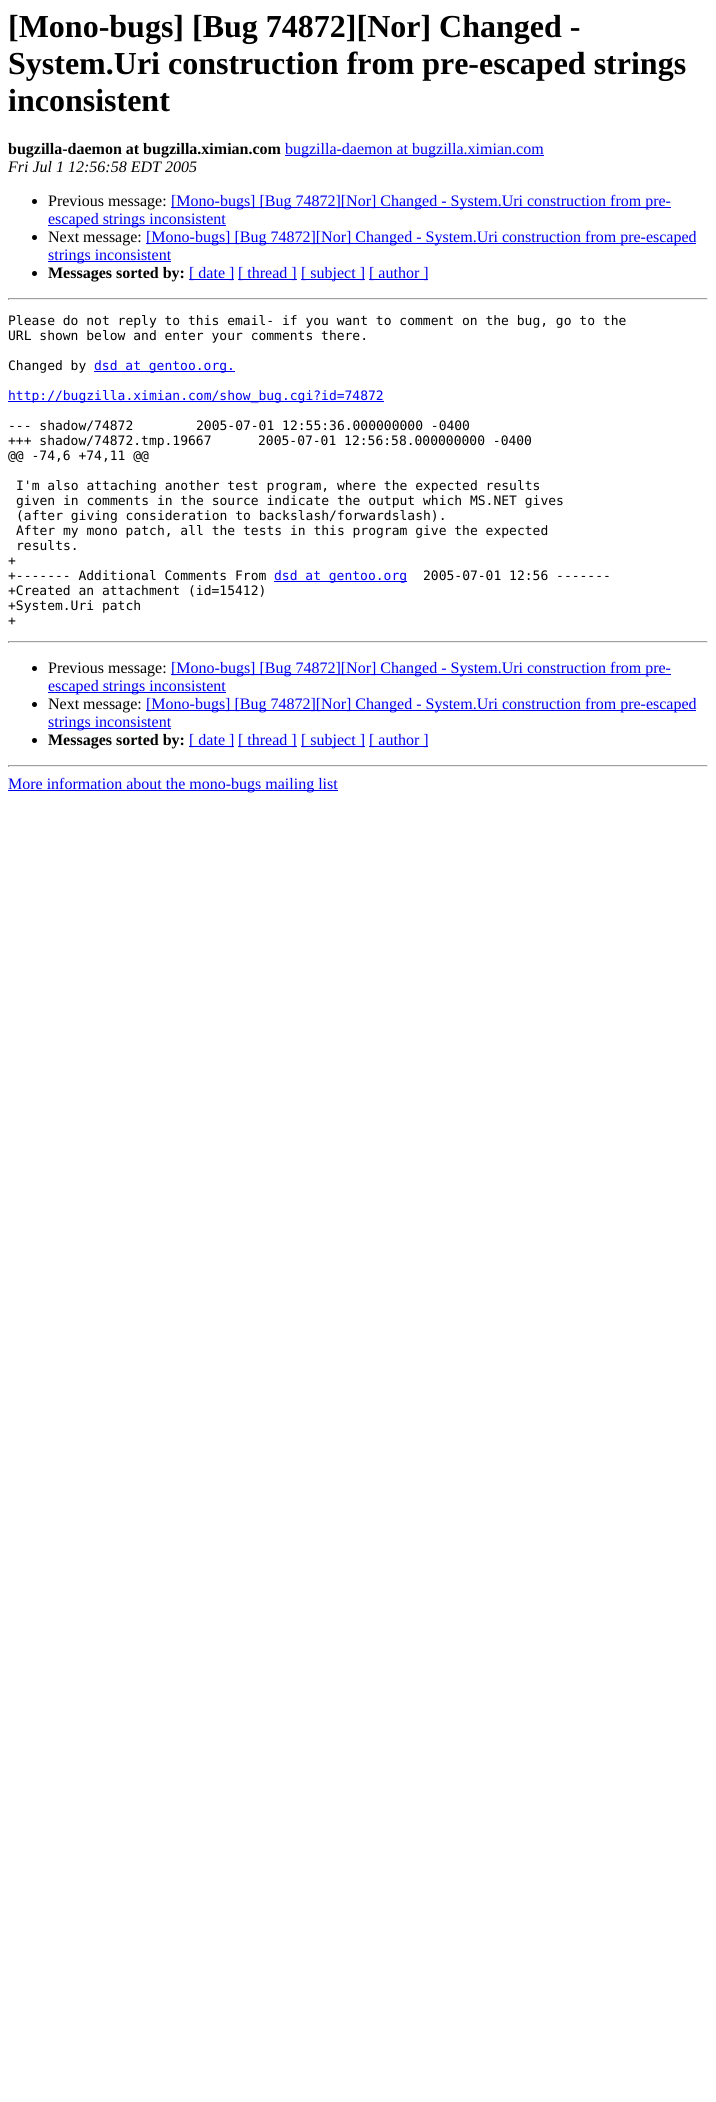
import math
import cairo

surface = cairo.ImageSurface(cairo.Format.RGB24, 716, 2102)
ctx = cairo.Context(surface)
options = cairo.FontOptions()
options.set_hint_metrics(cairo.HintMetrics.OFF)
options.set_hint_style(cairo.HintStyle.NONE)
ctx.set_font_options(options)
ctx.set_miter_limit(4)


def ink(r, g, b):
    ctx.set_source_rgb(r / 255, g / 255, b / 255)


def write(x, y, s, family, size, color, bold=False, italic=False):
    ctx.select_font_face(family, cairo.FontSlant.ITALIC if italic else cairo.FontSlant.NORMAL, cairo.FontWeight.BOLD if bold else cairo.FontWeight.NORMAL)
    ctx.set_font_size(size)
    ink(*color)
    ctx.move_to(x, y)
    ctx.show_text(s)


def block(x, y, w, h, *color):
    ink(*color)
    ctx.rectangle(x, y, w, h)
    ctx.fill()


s1 = dict(family="Liberation Serif", size=32, color=(0, 0, 0), bold=True)
s2 = dict(family="Liberation Serif", size=16, color=(0, 0, 0), bold=True)
s3 = dict(family="Liberation Serif", size=16, color=(0, 0, 238))
s4 = dict(family="Liberation Serif", size=16, color=(0, 0, 0), italic=True)
s5 = dict(family="Liberation Serif", size=16, color=(0, 0, 0))
s6 = dict(family="DejaVu Sans Mono", size=13, color=(0, 0, 0))
s7 = dict(family="DejaVu Sans Mono", size=13, color=(0, 0, 238))

ink(255, 255, 255)
ctx.paint()
write(8, 37, "[Mono-bugs] [Bug 74872][Nor] Changed -", **s1)
write(8, 74, "System.Uri construction from pre-escaped strings", **s1)
write(8, 111, "inconsistent", **s1)
write(8, 154, "bugzilla-daemon at bugzilla.ximian.com", **s2)
block(285, 155, 259, 1, 0, 0, 238)
write(285, 154, "bugzilla-daemon at bugzilla.ximian.com", **s3)
write(8, 172, "Fri Jul 1 12:56:58 EDT 2005", **s4)
ctx.new_path()
ctx.arc(34.5, 201.5, 2.5, 0, 2 * math.pi)
ctx.fill()
write(48, 206, "Previous message:", **s5)
block(171, 207, 500, 1, 0, 0, 238)
write(171, 206, "[Mono-bugs] [Bug 74872][Nor] Changed - System.Uri construction from pre-", **s3)
block(48, 225, 178, 1, 0, 0, 238)
write(48, 224, "escaped strings inconsistent", **s3)
ink(0, 0, 0)
ctx.new_path()
ctx.arc(34.5, 237.5, 2.5, 0, 2 * math.pi)
ctx.fill()
write(48, 242, "Next message:", **s5)
block(146, 243, 550, 1, 0, 0, 238)
write(146, 242, "[Mono-bugs] [Bug 74872][Nor] Changed - System.Uri construction from pre-escaped", **s3)
block(48, 261, 123, 1, 0, 0, 238)
write(48, 260, "strings inconsistent", **s3)
ink(0, 0, 0)
ctx.new_path()
ctx.arc(34.5, 273.5, 2.5, 0, 2 * math.pi)
ctx.fill()
write(48, 278, "Messages sorted by:", **s2)
block(189, 279, 45, 1, 0, 0, 238)
write(189, 278, "[ date ]", **s3)
block(238, 279, 59, 1, 0, 0, 238)
write(238, 278, "[ thread ]", **s3)
block(301, 279, 64, 1, 0, 0, 238)
write(301, 278, "[ subject ]", **s3)
block(369, 279, 59, 1, 0, 0, 238)
write(369, 278, "[ author ]", **s3)
block(8, 298, 700, 1, 159, 159, 159)
block(707, 298, 1, 2, 238, 238, 238)
block(8, 299, 700, 1, 238, 238, 238)
block(8, 298, 1, 2, 159, 159, 159)
write(8, 325, "Please do not reply to this email- if you want to comment on the bug, go to the", **s6)
write(8, 340, "URL shown below and enter your comments there.", **s6)
write(8, 370, "Changed by", **s6)
block(94, 371, 141, 1, 0, 0, 238)
write(94, 370, "dsd at gentoo.org.", **s7)
block(8, 401, 376, 1, 0, 0, 238)
write(8, 400, "http://bugzilla.ximian.com/show_bug.cgi?id=74872", **s7)
write(8, 430, "--- shadow/74872", **s6)
write(196, 430, "2005-07-01 12:55:36.000000000 -0400", **s6)
write(8, 445, "+++ shadow/74872.tmp.19667", **s6)
write(258, 445, "2005-07-01 12:56:58.000000000 -0400", **s6)
write(8, 460, "@@ -74,6 +74,11 @@", **s6)
write(16, 490, "I'm also attaching another test program, where the expected results", **s6)
write(16, 505, "given in comments in the source indicate the output which MS.NET gives", **s6)
write(16, 520, "(after giving consideration to backslash/forwardslash).", **s6)
write(16, 535, "After my mono patch, all the tests in this program give the expected", **s6)
write(16, 550, "results.", **s6)
write(8, 565, "+", **s6)
write(8, 580, "+------- Additional Comments From", **s6)
block(274, 581, 133, 1, 0, 0, 238)
write(274, 580, "dsd at gentoo.org", **s7)
write(423, 580, "2005-07-01 12:56 -------", **s6)
write(8, 595, "+Created an attachment (id=15412)", **s6)
write(8, 610, "+System.Uri patch", **s6)
write(8, 625, "+", **s6)
block(8, 641, 700, 1, 159, 159, 159)
block(707, 641, 1, 2, 238, 238, 238)
block(8, 642, 700, 1, 238, 238, 238)
block(8, 641, 1, 2, 159, 159, 159)
ink(0, 0, 0)
ctx.new_path()
ctx.arc(34.5, 668.5, 2.5, 0, 2 * math.pi)
ctx.fill()
write(48, 673, "Previous message:", **s5)
block(171, 674, 500, 1, 0, 0, 238)
write(171, 673, "[Mono-bugs] [Bug 74872][Nor] Changed - System.Uri construction from pre-", **s3)
block(48, 692, 178, 1, 0, 0, 238)
write(48, 691, "escaped strings inconsistent", **s3)
ink(0, 0, 0)
ctx.new_path()
ctx.arc(34.5, 704.5, 2.5, 0, 2 * math.pi)
ctx.fill()
write(48, 709, "Next message:", **s5)
block(146, 710, 550, 1, 0, 0, 238)
write(146, 709, "[Mono-bugs] [Bug 74872][Nor] Changed - System.Uri construction from pre-escaped", **s3)
block(48, 728, 123, 1, 0, 0, 238)
write(48, 727, "strings inconsistent", **s3)
ink(0, 0, 0)
ctx.new_path()
ctx.arc(34.5, 740.5, 2.5, 0, 2 * math.pi)
ctx.fill()
write(48, 745, "Messages sorted by:", **s2)
block(189, 746, 45, 1, 0, 0, 238)
write(189, 745, "[ date ]", **s3)
block(238, 746, 59, 1, 0, 0, 238)
write(238, 745, "[ thread ]", **s3)
block(301, 746, 64, 1, 0, 0, 238)
write(301, 745, "[ subject ]", **s3)
block(369, 746, 59, 1, 0, 0, 238)
write(369, 745, "[ author ]", **s3)
block(8, 765, 700, 1, 159, 159, 159)
block(707, 765, 1, 2, 238, 238, 238)
block(8, 766, 700, 1, 238, 238, 238)
block(8, 765, 1, 2, 159, 159, 159)
block(8, 790, 330, 1, 0, 0, 238)
write(8, 789, "More information about the mono-bugs mailing list", **s3)
surface.write_to_png("screenshot.png")
